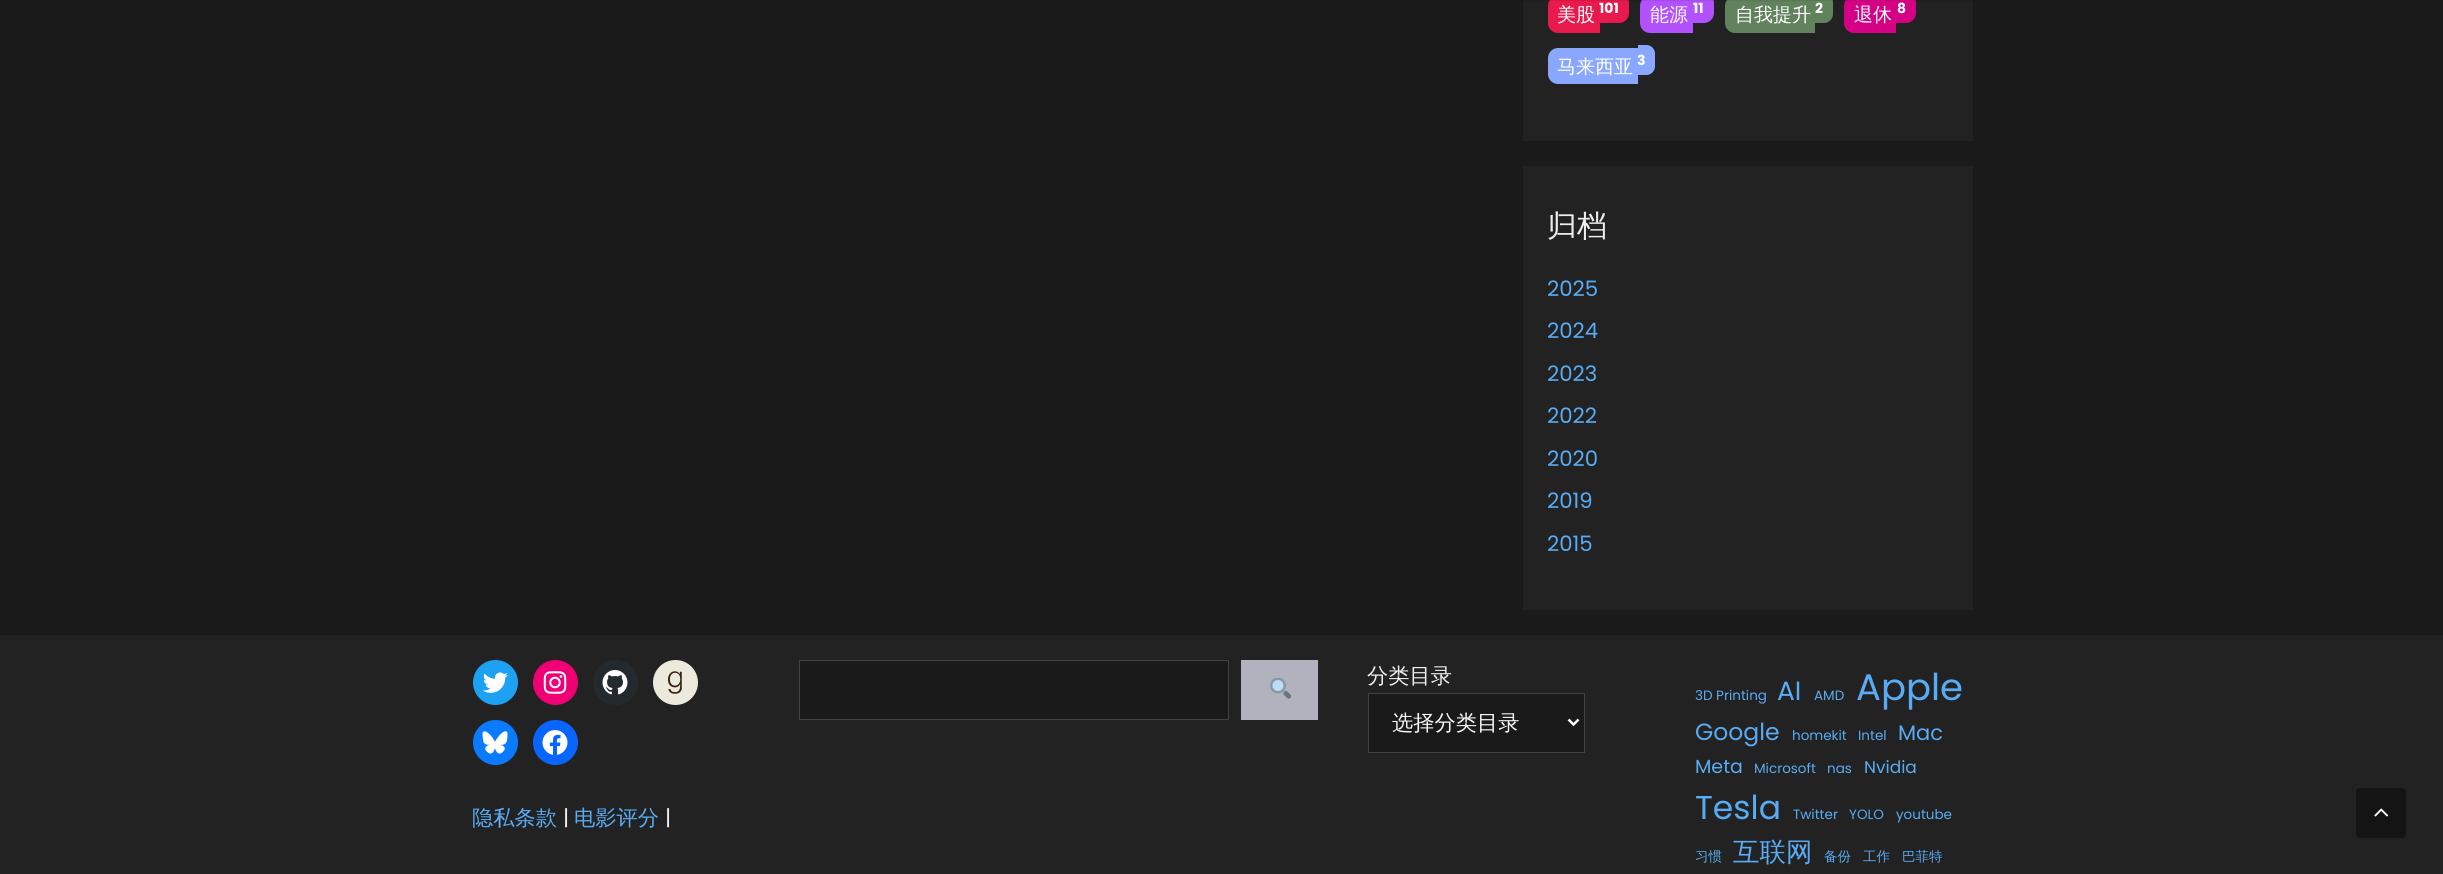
import math
import cairo

surface = cairo.ImageSurface(cairo.Format.RGB24, 2443, 874)
ctx = cairo.Context(surface)
options = cairo.FontOptions()
options.set_hint_metrics(cairo.HintMetrics.OFF)
options.set_hint_style(cairo.HintStyle.NONE)
ctx.set_font_options(options)
ctx.set_miter_limit(4)


def ink(r, g, b):
    ctx.set_source_rgb(r / 255, g / 255, b / 255)


def write(x, y, s, family, size, color, bold=False, italic=False):
    ctx.select_font_face(family, cairo.FontSlant.ITALIC if italic else cairo.FontSlant.NORMAL, cairo.FontWeight.BOLD if bold else cairo.FontWeight.NORMAL)
    ctx.set_font_size(size)
    ink(*color)
    ctx.move_to(x, y)
    ctx.show_text(s)


def block(x, y, w, h, *color):
    ink(*color)
    ctx.rectangle(x, y, w, h)
    ctx.fill()


def round_path(x, y, w, h, r):
    ctx.new_sub_path()
    for i, (u, v) in enumerate([(x + w - r, y + h - r), (x + r, y + h - r), (x + r, y + r), (x + w - r, y + r)]):
        ctx.arc(u, v, r, i * math.pi / 2, (i + 1) * math.pi / 2)
    ctx.close_path()


def blur_box(x, y, w, h, r, blur, alpha):
    ctx.push_group_with_content(cairo.Content.ALPHA)
    ctx.set_operator(cairo.Operator.SOURCE)
    for i in range(15, -16, -2):
        e = blur * i / 6
        if min(w, h) + 2 * e > 0:
            ctx.set_source_rgba(0, 0, 0, alpha * math.erfc((i - 1) / 8.5) / 2)
            round_path(x - e, y - e, w + 2 * e, h + 2 * e, max(0, min(r + e + blur * .6, min(w, h) / 2 + e)))
            ctx.fill()
    ctx.mask(ctx.pop_group())


def paste(path, x, y, w, h):
    ctx.save()
    ctx.set_source_surface(cairo.ImageSurface.create_from_png(path), x, y)
    ctx.rectangle(x, y, w, h)
    ctx.fill()
    ctx.restore()


s1 = dict(family="WenQuanYi Zen Hei Medium", size=19, color=(255, 255, 255))
s2 = dict(family="Poppins", size=14, color=(255, 255, 255), bold=True)
s3 = dict(family="WenQuanYi Zen Hei Medium", size=30, color=(238, 238, 238))
s4 = dict(family="Poppins", size=21.25, color=(89, 172, 244))
s5 = dict(family="WenQuanYi Zen Hei Medium", size=21.25, color=(89, 172, 244))
s6 = dict(family="Poppins", size=21.25, color=(238, 238, 238))
s7 = dict(family="WenQuanYi Zen Hei Medium", size=21.25, color=(238, 238, 238))
s8 = dict(family="WenQuanYi Zen Hei Medium", size=21.25, color=(247, 248, 249))
s9 = dict(family="Poppins", size=13.5, color=(89, 172, 244))
s10 = dict(family="Poppins", size=26.5, color=(89, 172, 244))
s11 = dict(family="Poppins", size=37, color=(89, 172, 244))
s12 = dict(family="Poppins", size=23.5, color=(89, 172, 244))
s13 = dict(family="Poppins", size=21, color=(89, 172, 244))
s14 = dict(family="Poppins", size=19, color=(89, 172, 244))
s15 = dict(family="Poppins", size=17, color=(89, 172, 244))
s16 = dict(family="Poppins", size=33, color=(89, 172, 244))
s17 = dict(family="WenQuanYi Zen Hei Medium", size=13.5, color=(89, 172, 244))
s18 = dict(family="WenQuanYi Zen Hei Medium", size=26.5, color=(89, 172, 244))

ink(26, 26, 26)
ctx.paint()
block(1523, 0, 450, 141, 34, 34, 34)
ink(232, 25, 77)
ctx.new_path()
ctx.move_to(1558, -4)
ctx.line_to(1600, -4)
ctx.line_to(1600, 33)
ctx.line_to(1558, 33)
ctx.curve_to(1552.5, 33, 1548, 28.5, 1548, 23)
ctx.line_to(1548, 6)
ctx.curve_to(1548, 0.5, 1552.5, -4, 1558, -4)
ctx.close_path()
ctx.fill()
ctx.new_path()
ctx.move_to(1600, -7)
ctx.line_to(1619, -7)
ctx.curve_to(1624.5, -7, 1629, -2.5, 1629, 3)
ctx.line_to(1629, 13)
ctx.curve_to(1629, 18.5, 1624.5, 23, 1619, 23)
ctx.line_to(1600, 23)
ctx.close_path()
ctx.fill()
ink(178, 81, 254)
ctx.new_path()
ctx.move_to(1650, -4)
ctx.line_to(1693, -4)
ctx.line_to(1693, 33)
ctx.line_to(1650, 33)
ctx.curve_to(1644.5, 33, 1640, 28.5, 1640, 23)
ctx.line_to(1640, 6)
ctx.curve_to(1640, 0.5, 1644.5, -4, 1650, -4)
ctx.close_path()
ctx.fill()
ctx.new_path()
ctx.move_to(1693, -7)
ctx.line_to(1704, -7)
ctx.curve_to(1709.5, -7, 1714, -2.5, 1714, 3)
ctx.line_to(1714, 13)
ctx.curve_to(1714, 18.5, 1709.5, 23, 1704, 23)
ctx.line_to(1693, 23)
ctx.close_path()
ctx.fill()
ink(98, 130, 93)
ctx.new_path()
ctx.move_to(1735, -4)
ctx.line_to(1815, -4)
ctx.line_to(1815, 33)
ctx.line_to(1735, 33)
ctx.curve_to(1729.5, 33, 1725, 28.5, 1725, 23)
ctx.line_to(1725, 6)
ctx.curve_to(1725, 0.5, 1729.5, -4, 1735, -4)
ctx.close_path()
ctx.fill()
ctx.new_path()
ctx.move_to(1815, -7)
ctx.line_to(1824, -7)
ctx.curve_to(1829, -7, 1833, -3, 1833, 2)
ctx.line_to(1833, 14)
ctx.curve_to(1833, 19, 1829, 23, 1824, 23)
ctx.line_to(1815, 23)
ctx.close_path()
ctx.fill()
ink(213, 1, 132)
ctx.new_path()
ctx.move_to(1854, -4)
ctx.line_to(1896, -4)
ctx.line_to(1896, 33)
ctx.line_to(1854, 33)
ctx.curve_to(1848.5, 33, 1844, 28.5, 1844, 23)
ctx.line_to(1844, 6)
ctx.curve_to(1844, 0.5, 1848.5, -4, 1854, -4)
ctx.close_path()
ctx.fill()
ctx.new_path()
ctx.move_to(1896, -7)
ctx.line_to(1906, -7)
ctx.curve_to(1911.5, -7, 1916, -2.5, 1916, 3)
ctx.line_to(1916, 13)
ctx.curve_to(1916, 18.5, 1911.5, 23, 1906, 23)
ctx.line_to(1896, 23)
ctx.close_path()
ctx.fill()
ink(0, 0, 0)
blur_box(3, -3, 2438, 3, 0, 1, 0.2)
write(1557, 21, "美股", **s1)
write(1599, 13, "101", **s2)
write(1650, 21, "能源", **s1)
write(1693, 13, "11", **s2)
write(1735, 21, "自我提升", **s1)
write(1815, 13, "2", **s2)
write(1854, 21, "退休", **s1)
write(1897, 13, "8", **s2)
ink(137, 167, 255)
ctx.new_path()
ctx.move_to(1558, 48)
ctx.line_to(1638, 48)
ctx.line_to(1638, 84)
ctx.line_to(1558, 84)
ctx.curve_to(1552.5, 84, 1548, 79.5, 1548, 74)
ctx.line_to(1548, 58)
ctx.curve_to(1548, 52.5, 1552.5, 48, 1558, 48)
ctx.close_path()
ctx.fill()
write(1557, 73, "马来西亚", **s1)
ink(137, 167, 255)
ctx.new_path()
ctx.move_to(1638, 45)
ctx.line_to(1646.5, 45)
ctx.curve_to(1651, 45, 1655, 49, 1655, 53.5)
ctx.line_to(1655, 66.5)
ctx.curve_to(1655, 71, 1651, 75, 1646.5, 75)
ctx.line_to(1638, 75)
ctx.close_path()
ctx.fill()
write(1637, 65, "3", **s2)
block(1523, 166, 450, 444, 34, 34, 34)
write(1547, 236, "归档", **s3)
write(1547, 296, "2025", **s4)
write(1547, 338, "2024", **s4)
write(1547, 381, "2023", **s4)
write(1547, 423, "2022", **s4)
write(1547, 466, "2020", **s4)
write(1547, 508, "2019", **s4)
write(1547, 551, "2015", **s4)
block(0, 635, 2443, 239, 34, 34, 34)
ink(29, 161, 242)
ctx.new_path()
ctx.arc(495.5, 682.5, 22.5, 0, 2 * math.pi)
ctx.fill()
paste("pic1.png", 483, 672, 25, 21)
ink(240, 0, 117)
ctx.arc(555.5, 682.5, 22.5, 0, 2 * math.pi)
ctx.fill()
paste("pic2.png", 543, 671, 24, 23)
ink(36, 41, 45)
ctx.arc(615.5, 682.5, 22.5, 0, 2 * math.pi)
ctx.fill()
paste("pic3.png", 602, 670, 26, 25)
ink(236, 234, 221)
ctx.arc(675.5, 682.5, 22.5, 0, 2 * math.pi)
ctx.fill()
paste("pic4.png", 668, 671, 14, 23)
ink(10, 122, 255)
ctx.arc(495.5, 742.5, 22.5, 0, 2 * math.pi)
ctx.fill()
paste("pic5.png", 482, 731, 26, 23)
ink(8, 102, 255)
ctx.arc(555.5, 742.5, 22.5, 0, 2 * math.pi)
ctx.fill()
paste("pic6.png", 542, 730, 26, 25)
write(472, 825, "隐私条款", **s5)
write(563, 825, "|", **s6)
write(574, 825, "电影评分", **s5)
write(665, 825, "|", **s6)
ink(26, 26, 26)
ctx.rectangle(799.5, 660.5, 429, 59)
ctx.fill_preserve()
ink(65, 65, 65)
ctx.set_line_width(1)
ctx.stroke()
block(1241, 660, 77, 60, 178, 178, 190)
paste("pic7.png", 1270, 678, 21, 21)
write(1367, 683, "分类目录", **s7)
ink(26, 26, 26)
ctx.rectangle(1368.5, 693.5, 216, 59)
ctx.fill_preserve()
ink(65, 65, 65)
ctx.stroke()
ctx.new_path()
ctx.move_to(1568.5, 719.5)
ctx.line_to(1573.5, 724.5)
ctx.line_to(1578.5, 719.5)
ink(247, 248, 249)
ctx.set_line_width(2.5)
ctx.stroke()
write(1392, 730, "选择分类目录", **s8)
write(1695, 700, "3D Printing", **s9)
write(1777, 700, "AI", **s10)
write(1814, 700, "AMD", **s9)
write(1856, 700, "Apple", **s11)
write(1695, 740, "Google", **s12)
write(1792, 740, "homekit", **s9)
write(1858, 740, "Intel", **s9)
write(1898, 740, "Mac", **s13)
write(1695, 773, "Meta", **s14)
write(1754, 773, "Microsoft", **s9)
write(1827, 773, "nas", **s9)
write(1864, 773, "Nvidia", **s15)
write(1695, 819, "Tesla", **s16)
write(1793, 819, "Twitter", **s9)
write(1849, 819, "YOLO", **s9)
write(1896, 819, "youtube", **s9)
write(1695, 861, "习惯", **s17)
write(1733, 861, "互联网", **s18)
write(1824, 861, "备份", **s17)
write(1863, 861, "工作", **s17)
write(1902, 861, "巴菲特", **s17)
ink(20, 20, 20)
round_path(2356, 788, 50, 50, 4)
ctx.fill()
paste("pic8.png", 2374, 808, 15, 9)
surface.write_to_png("screenshot.png")
